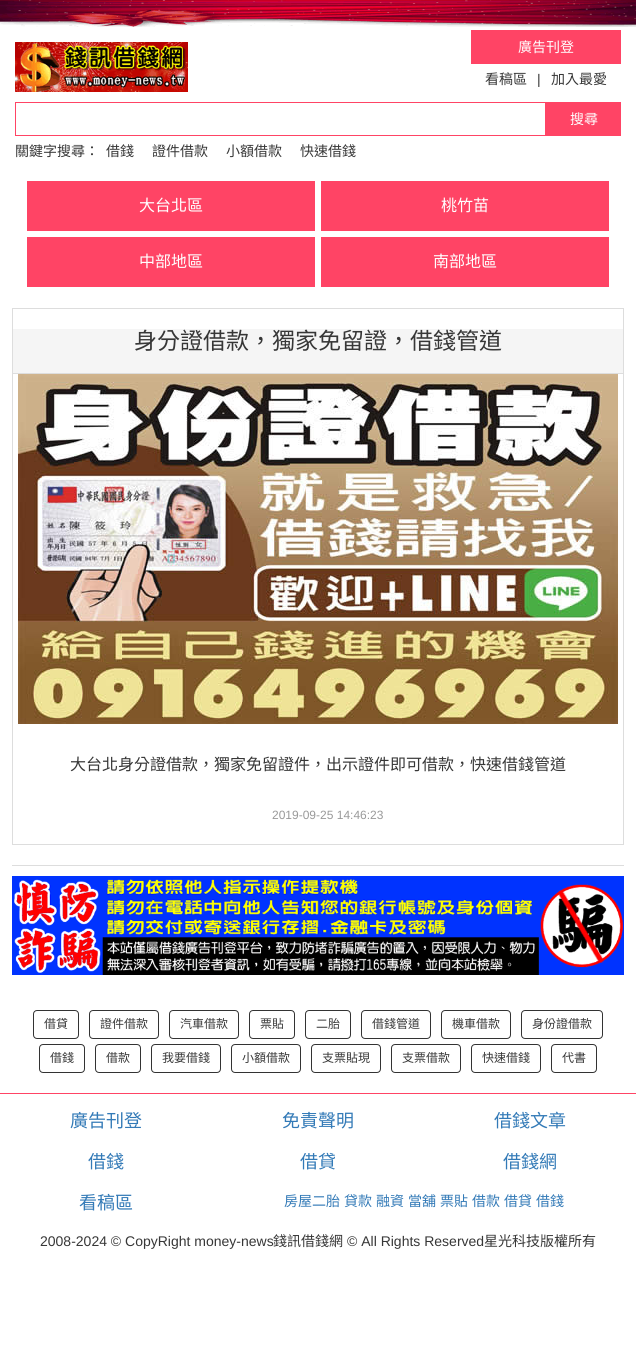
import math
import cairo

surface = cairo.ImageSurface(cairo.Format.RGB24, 636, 1363)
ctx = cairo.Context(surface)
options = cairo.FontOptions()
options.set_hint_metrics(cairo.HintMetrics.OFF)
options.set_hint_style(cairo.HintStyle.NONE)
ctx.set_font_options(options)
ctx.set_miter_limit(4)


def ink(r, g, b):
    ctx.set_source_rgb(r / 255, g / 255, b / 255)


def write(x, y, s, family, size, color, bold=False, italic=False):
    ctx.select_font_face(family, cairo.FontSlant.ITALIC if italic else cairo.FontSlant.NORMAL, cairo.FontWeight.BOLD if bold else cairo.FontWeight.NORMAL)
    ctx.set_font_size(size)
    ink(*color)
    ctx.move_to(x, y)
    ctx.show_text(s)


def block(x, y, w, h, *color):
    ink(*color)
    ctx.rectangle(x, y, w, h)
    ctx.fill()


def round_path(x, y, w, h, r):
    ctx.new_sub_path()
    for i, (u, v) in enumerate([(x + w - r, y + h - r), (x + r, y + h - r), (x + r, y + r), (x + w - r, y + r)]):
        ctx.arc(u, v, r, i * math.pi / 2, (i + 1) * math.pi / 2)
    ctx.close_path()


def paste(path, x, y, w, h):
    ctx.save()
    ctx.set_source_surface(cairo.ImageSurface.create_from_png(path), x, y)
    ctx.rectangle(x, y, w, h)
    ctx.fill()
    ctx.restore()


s1 = dict(family="Noto Sans CJK TC", size=14, color=(255, 255, 255))
s2 = dict(family="Noto Sans CJK TC", size=14, color=(55, 55, 55))
s3 = dict(family="Liberation Sans", size=14, color=(55, 55, 55))
s4 = dict(family="Noto Sans CJK TC", size=16, color=(255, 255, 255))
s5 = dict(family="Noto Sans CJK TC", size=23, color=(55, 55, 55))
s6 = dict(family="Noto Sans CJK TC", size=16, color=(55, 55, 55))
s7 = dict(family="Liberation Sans", size=12, color=(153, 153, 153))
s8 = dict(family="Noto Sans CJK TC", size=12, color=(55, 55, 55))
s9 = dict(family="Noto Sans CJK TC", size=18, color=(51, 122, 183))
s10 = dict(family="Noto Sans CJK TC", size=14, color=(51, 122, 183))

ink(255, 255, 255)
ctx.paint()
paste("pic1.png", 0, 0, 636, 27)
block(471, 30, 150, 34, 255, 68, 101)
write(518, 52, "廣告刊登", **s1)
write(485, 84, "看稿區", **s2)
write(537, 84, "|", **s3)
write(551, 84, "加入最愛", **s2)
ctx.rectangle(15.5, 102.5, 530, 33)
ink(255, 68, 101)
ctx.set_line_width(1)
ctx.stroke()
block(546, 102, 75, 34, 255, 68, 101)
write(570, 124, "搜尋", **s1)
write(15, 156, "關鍵字搜尋：", **s2)
write(106, 156, "借錢", **s2)
write(152, 156, "證件借款", **s2)
write(226, 156, "小額借款", **s2)
write(300, 156, "快速借錢", **s2)
paste("pic2.png", 15, 42, 173, 50)
block(27, 181, 288, 50, 255, 68, 101)
write(139, 211, "大台北區", **s4)
block(321, 181, 288, 50, 255, 68, 101)
write(441, 211, "桃竹苗", **s4)
block(27, 237, 288, 50, 255, 68, 101)
write(139, 267, "中部地區", **s4)
block(321, 237, 288, 50, 255, 68, 101)
write(433, 267, "南部地區", **s4)
ctx.rectangle(12.5, 308.5, 611, 536)
ink(221, 221, 221)
ctx.stroke()
block(13, 329, 610, 44, 245, 245, 245)
block(13, 373, 610, 1, 221, 221, 221)
write(134, 349, "身分證借款，獨家免留證，借錢管道", **s5)
paste("pic3.png", 18, 374, 600, 350)
write(70, 770, "大台北身分證借款，獨家免留證件，出示證件即可借款，快速借錢管道", **s6)
write(272, 819, "2019-09-25 14:46:23", **s7)
block(12, 865, 612, 1, 221, 221, 221)
paste("pic4.png", 12, 876, 612, 99)
round_path(33.5, 1010.5, 45, 28, 3.5)
ink(51, 51, 51)
ctx.stroke()
write(44, 1028, "借貸", **s8)
round_path(89.5, 1010.5, 69, 28, 3.5)
ink(51, 51, 51)
ctx.stroke()
write(100, 1028, "證件借款", **s8)
round_path(169.5, 1010.5, 69, 28, 3.5)
ink(51, 51, 51)
ctx.stroke()
write(180, 1028, "汽車借款", **s8)
round_path(249.5, 1010.5, 45, 28, 3.5)
ink(51, 51, 51)
ctx.stroke()
write(260, 1028, "票貼", **s8)
round_path(305.5, 1010.5, 45, 28, 3.5)
ink(51, 51, 51)
ctx.stroke()
write(316, 1028, "二胎", **s8)
round_path(361.5, 1010.5, 69, 28, 3.5)
ink(51, 51, 51)
ctx.stroke()
write(372, 1028, "借錢管道", **s8)
round_path(441.5, 1010.5, 69, 28, 3.5)
ink(51, 51, 51)
ctx.stroke()
write(452, 1028, "機車借款", **s8)
round_path(521.5, 1010.5, 81, 28, 3.5)
ink(51, 51, 51)
ctx.stroke()
write(532, 1028, "身份證借款", **s8)
round_path(39.5, 1044.5, 45, 28, 3.5)
ink(51, 51, 51)
ctx.stroke()
write(50, 1062, "借錢", **s8)
round_path(95.5, 1044.5, 45, 28, 3.5)
ink(51, 51, 51)
ctx.stroke()
write(106, 1062, "借款", **s8)
round_path(151.5, 1044.5, 69, 28, 3.5)
ink(51, 51, 51)
ctx.stroke()
write(162, 1062, "我要借錢", **s8)
round_path(231.5, 1044.5, 69, 28, 3.5)
ink(51, 51, 51)
ctx.stroke()
write(242, 1062, "小額借款", **s8)
round_path(311.5, 1044.5, 69, 28, 3.5)
ink(51, 51, 51)
ctx.stroke()
write(322, 1062, "支票貼現", **s8)
round_path(391.5, 1044.5, 69, 28, 3.5)
ink(51, 51, 51)
ctx.stroke()
write(402, 1062, "支票借款", **s8)
round_path(471.5, 1044.5, 69, 28, 3.5)
ink(51, 51, 51)
ctx.stroke()
write(482, 1062, "快速借錢", **s8)
round_path(551.5, 1044.5, 45, 28, 3.5)
ink(51, 51, 51)
ctx.stroke()
write(562, 1062, "代書", **s8)
block(0, 1093, 636, 1, 255, 68, 101)
write(70, 1127, "廣告刊登", **s9)
write(282, 1127, "免責聲明", **s9)
write(494, 1127, "借錢文章", **s9)
write(88, 1168, "借錢", **s9)
write(300, 1168, "借貸", **s9)
write(503, 1168, "借錢網", **s9)
write(79, 1209, "看稿區", **s9)
write(284, 1206, "房屋二胎", **s10)
write(344, 1206, "貸款", **s10)
write(376, 1206, "融資", **s10)
write(408, 1206, "當舖", **s10)
write(440, 1206, "票貼", **s10)
write(472, 1206, "借款", **s10)
write(504, 1206, "借貸", **s10)
write(536, 1206, "借錢", **s10)
write(40, 1246, "2008-2024 © CopyRight money-news", **s3)
write(273, 1246, "錢訊借錢網", **s2)
write(347, 1246, "© All Rights Reserved", **s3)
write(484, 1246, "星光科技版權所有", **s2)
surface.write_to_png("screenshot.png")
